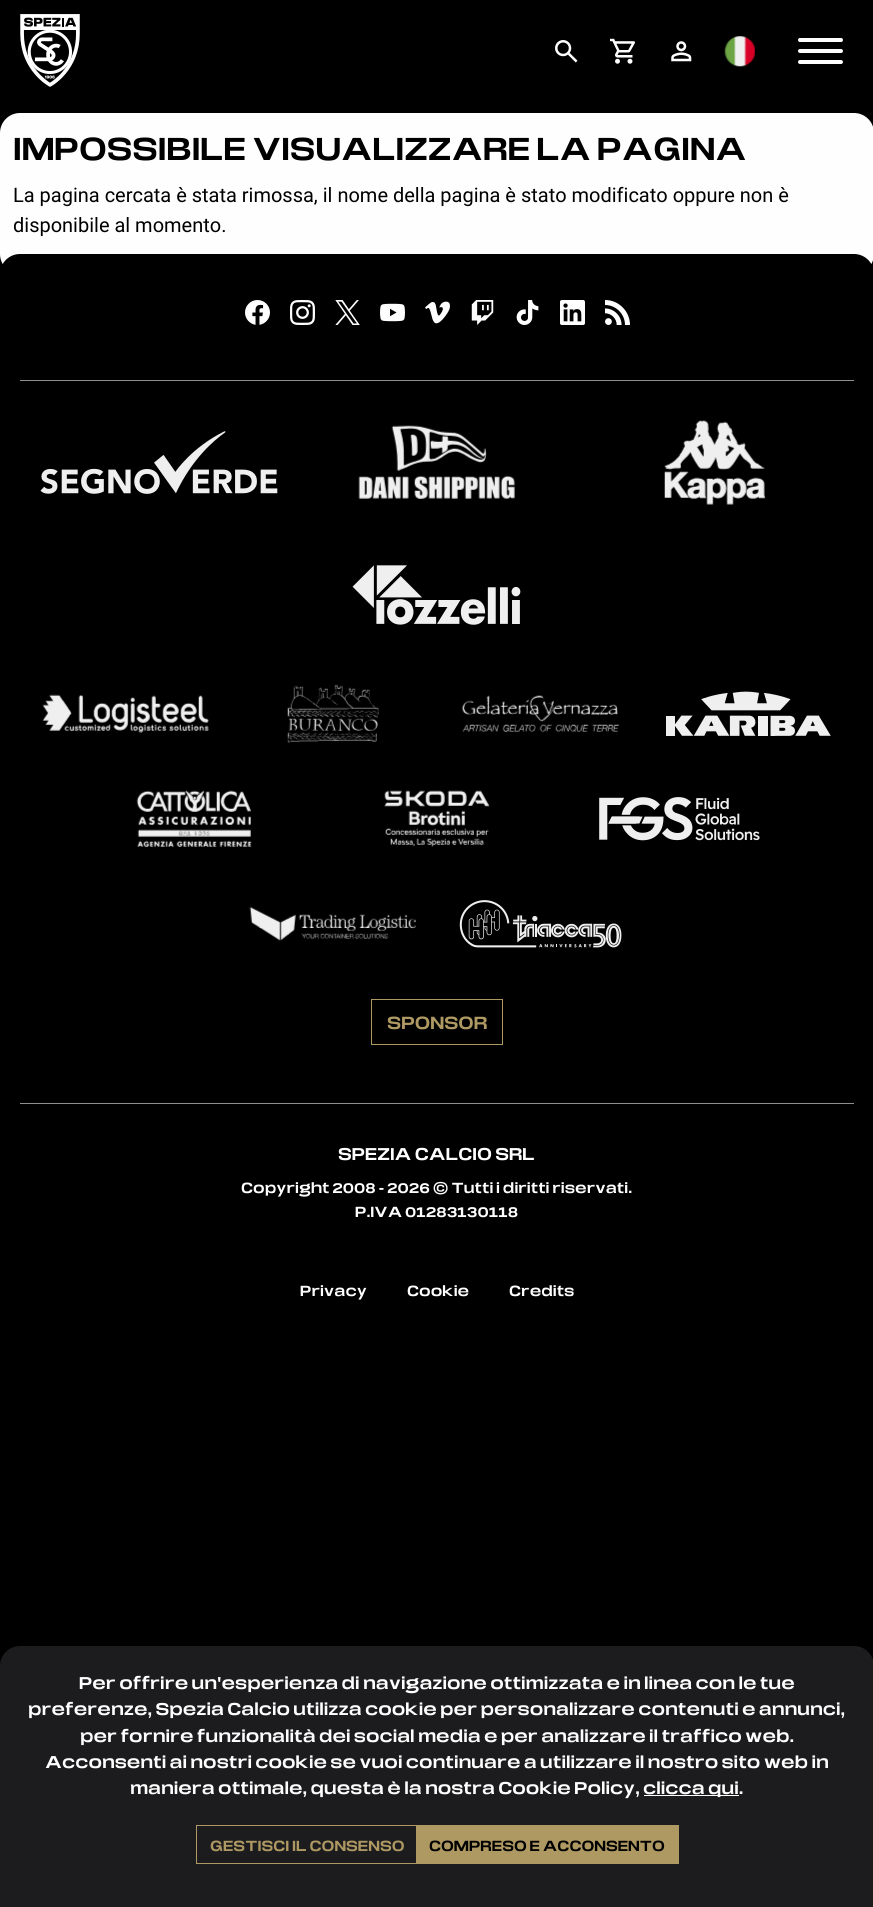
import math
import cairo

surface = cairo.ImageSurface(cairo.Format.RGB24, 873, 1907)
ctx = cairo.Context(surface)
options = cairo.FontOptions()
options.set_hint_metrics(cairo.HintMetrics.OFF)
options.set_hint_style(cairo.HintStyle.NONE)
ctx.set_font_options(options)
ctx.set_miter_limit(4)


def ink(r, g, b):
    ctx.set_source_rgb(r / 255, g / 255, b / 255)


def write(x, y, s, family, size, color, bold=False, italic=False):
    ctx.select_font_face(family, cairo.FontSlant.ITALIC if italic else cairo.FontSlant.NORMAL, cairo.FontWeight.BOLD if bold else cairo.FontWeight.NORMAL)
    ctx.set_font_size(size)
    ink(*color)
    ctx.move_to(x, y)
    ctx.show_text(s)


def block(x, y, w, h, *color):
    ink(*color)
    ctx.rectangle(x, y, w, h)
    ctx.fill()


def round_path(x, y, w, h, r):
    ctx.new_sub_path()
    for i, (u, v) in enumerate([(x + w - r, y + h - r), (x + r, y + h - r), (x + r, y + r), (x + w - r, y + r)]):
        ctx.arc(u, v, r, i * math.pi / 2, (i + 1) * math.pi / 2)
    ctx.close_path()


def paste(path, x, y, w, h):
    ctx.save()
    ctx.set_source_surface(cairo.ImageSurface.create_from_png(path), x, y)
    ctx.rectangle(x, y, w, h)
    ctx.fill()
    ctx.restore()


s1 = dict(family="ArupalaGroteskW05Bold", size=32.5, color=(0, 0, 0), bold=True)
s2 = dict(family="Roboto", size=20, color=(0, 0, 0))
s3 = dict(family="ArupalaGroteskW05Bold", size=18, color=(174, 153, 98), bold=True)
s4 = dict(family="ArupalaGroteskW05Bold", size=17.5, color=(254, 254, 254), bold=True)
s5 = dict(family="ArupalaGroteskW05Bold", size=15, color=(254, 254, 254), bold=True)
s6 = dict(family="ArupalaGroteskW05Bold", size=15, color=(174, 153, 98), bold=True)
s7 = dict(family="ArupalaGroteskW05Bold", size=15, color=(0, 0, 0), bold=True)

ink(0, 0, 0)
ctx.paint()
paste("pic1.png", 20, 14, 60, 73)
paste("pic2.png", 555, 40, 23, 23)
paste("pic3.png", 610, 38, 25, 26)
paste("pic4.png", 671, 41, 21, 21)
paste("pic5.png", 724, 36, 31, 31)
ink(254, 254, 254)
round_path(798, 49, 45, 4, 2)
ctx.fill()
round_path(798, 38, 45, 4, 2)
ctx.fill()
round_path(798, 60, 45, 4, 2)
ctx.fill()
round_path(0, 113, 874, 161, 20)
ctx.fill()
write(13, 160, "IMPOSSIBILE VISUALIZZARE LA PAGINA", **s1)
write(13, 202, "La pagina cercata è stata rimossa, il nome della pagina è stato modificato oppure non è", **s2)
write(13, 232, "disponibile al momento.", **s2)
ctx.new_path()
ctx.move_to(20, 254)
ctx.line_to(854, 254)
ctx.curve_to(865, 254, 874, 263, 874, 274)
ctx.line_to(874, 1344)
ctx.line_to(0, 1344)
ctx.line_to(0, 274)
ctx.curve_to(0, 263, 9, 254, 20, 254)
ctx.close_path()
ctx.fill()
paste("pic6.png", 245, 300, 25, 25)
paste("pic7.png", 290, 300, 25, 25)
paste("pic8.png", 335, 300, 25, 25)
paste("pic9.png", 380, 303, 25, 19)
paste("pic10.png", 425, 301, 25, 23)
paste("pic11.png", 471, 300, 23, 25)
paste("pic12.png", 516, 300, 23, 25)
paste("pic13.png", 560, 300, 25, 25)
paste("pic14.png", 605, 300, 25, 25)
block(20, 380, 834, 1, 143, 142, 147)
paste("pic15.png", 40, 431, 238, 63)
paste("pic16.png", 358, 425, 157, 74)
paste("pic17.png", 664, 420, 102, 85)
paste("pic18.png", 352, 565, 169, 60)
paste("pic19.png", 42, 694, 167, 39)
paste("pic20.png", 287, 684, 92, 59)
paste("pic21.png", 461, 695, 158, 37)
paste("pic22.png", 666, 691, 165, 45)
paste("pic23.png", 136, 790, 116, 57)
paste("pic24.png", 384, 790, 106, 57)
paste("pic25.png", 599, 797, 161, 44)
paste("pic26.png", 249, 906, 167, 35)
paste("pic27.png", 459, 900, 163, 48)
ctx.rectangle(371.5, 999.5, 131, 45)
ink(174, 153, 98)
ctx.set_line_width(1)
ctx.stroke()
write(387, 1029, "SPONSOR", **s3)
block(20, 1103, 834, 1, 143, 142, 147)
write(338, 1160, "SPEZIA CALCIO SRL", **s4)
write(241, 1193, "Copyright 2008 - 2026 © Tutti i diritti riservati.", **s5)
write(355, 1217, "P.IVA 01283130118", **s5)
write(300, 1296, "Privacy", **s5)
write(407, 1296, "Cookie", **s5)
write(509, 1296, "Credits", **s5)
ink(28, 28, 30)
ctx.new_path()
ctx.move_to(20, 1646)
ctx.line_to(854, 1646)
ctx.curve_to(865, 1646, 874, 1655, 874, 1666)
ctx.line_to(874, 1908)
ctx.line_to(0, 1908)
ctx.line_to(0, 1666)
ctx.curve_to(0, 1655, 9, 1646, 20, 1646)
ctx.close_path()
ctx.fill()
write(79, 1689, "Per offrire un'esperienza di navigazione ottimizzata e in linea con le tue", **s4)
write(28, 1715, "preferenze, Spezia Calcio utilizza cookie per personalizzare contenuti e annunci,", **s4)
write(80, 1742, "per fornire funzionalità dei social media e per analizzare il traffico web.", **s4)
write(45, 1768, "Acconsenti ai nostri cookie se vuoi continuare a utilizzare il nostro sito web in", **s4)
write(130, 1794, "maniera ottimale, questa è la nostra Cookie Policy,", **s4)
block(644, 1795, 95, 1, 254, 254, 254)
write(643, 1794, "clicca qui.", **s4)
ctx.rectangle(196.5, 1825.5, 221, 38)
ink(174, 153, 98)
ctx.stroke()
write(210, 1851, "GESTISCI IL CONSENSO", **s6)
block(416, 1825, 263, 39, 174, 153, 98)
write(429, 1851, "COMPRESO E ACCONSENTO", **s7)
surface.write_to_png("screenshot.png")
